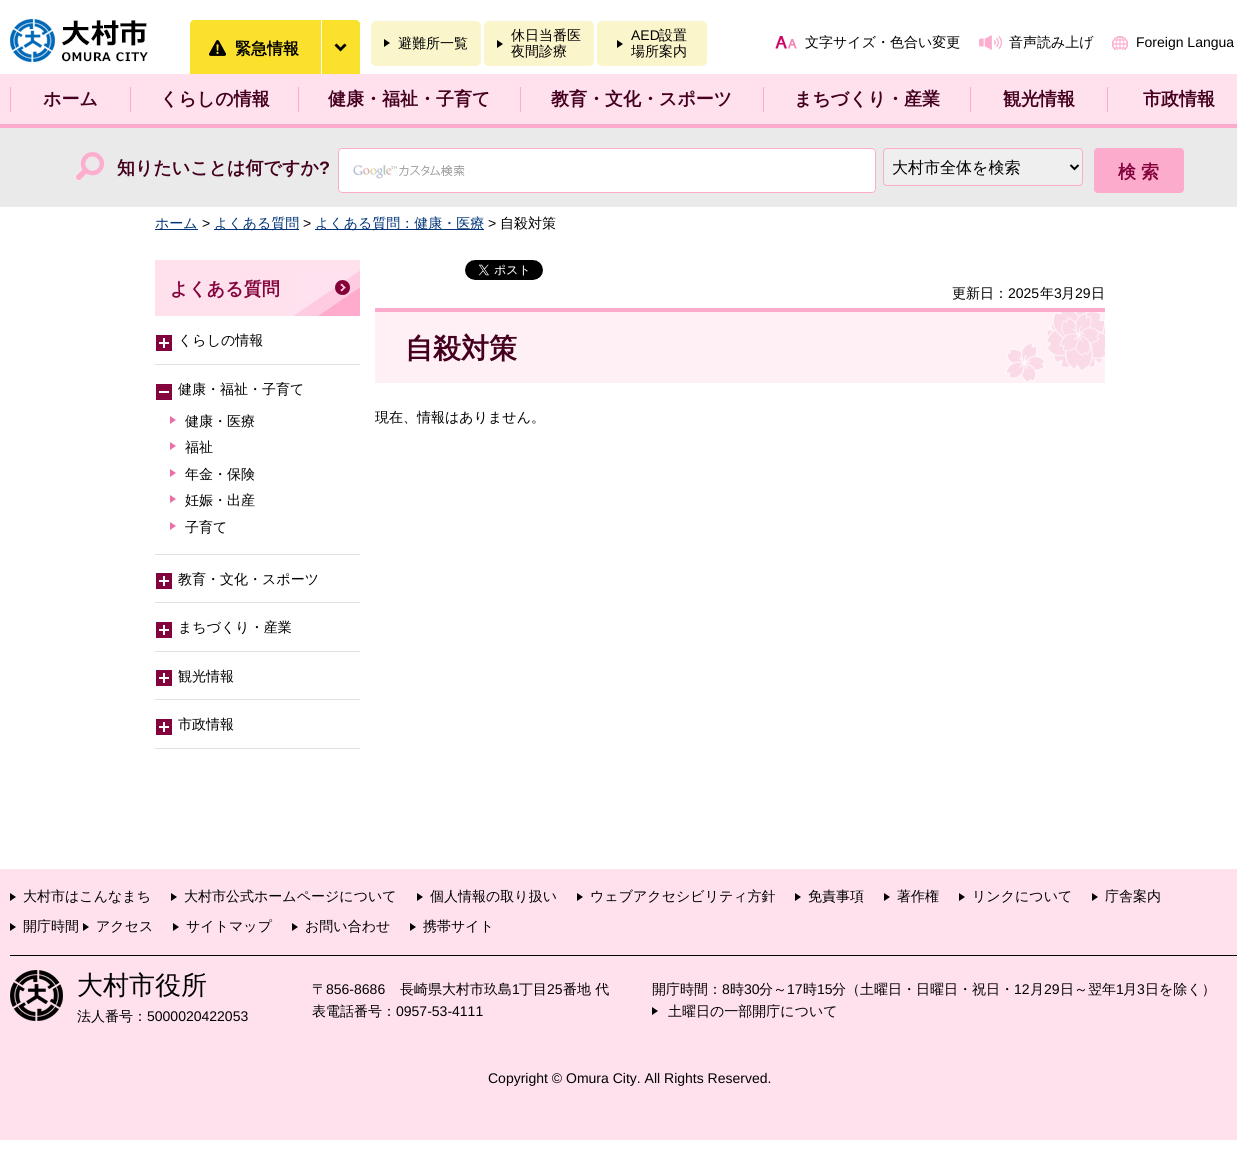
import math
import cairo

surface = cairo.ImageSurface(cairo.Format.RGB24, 1237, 1165)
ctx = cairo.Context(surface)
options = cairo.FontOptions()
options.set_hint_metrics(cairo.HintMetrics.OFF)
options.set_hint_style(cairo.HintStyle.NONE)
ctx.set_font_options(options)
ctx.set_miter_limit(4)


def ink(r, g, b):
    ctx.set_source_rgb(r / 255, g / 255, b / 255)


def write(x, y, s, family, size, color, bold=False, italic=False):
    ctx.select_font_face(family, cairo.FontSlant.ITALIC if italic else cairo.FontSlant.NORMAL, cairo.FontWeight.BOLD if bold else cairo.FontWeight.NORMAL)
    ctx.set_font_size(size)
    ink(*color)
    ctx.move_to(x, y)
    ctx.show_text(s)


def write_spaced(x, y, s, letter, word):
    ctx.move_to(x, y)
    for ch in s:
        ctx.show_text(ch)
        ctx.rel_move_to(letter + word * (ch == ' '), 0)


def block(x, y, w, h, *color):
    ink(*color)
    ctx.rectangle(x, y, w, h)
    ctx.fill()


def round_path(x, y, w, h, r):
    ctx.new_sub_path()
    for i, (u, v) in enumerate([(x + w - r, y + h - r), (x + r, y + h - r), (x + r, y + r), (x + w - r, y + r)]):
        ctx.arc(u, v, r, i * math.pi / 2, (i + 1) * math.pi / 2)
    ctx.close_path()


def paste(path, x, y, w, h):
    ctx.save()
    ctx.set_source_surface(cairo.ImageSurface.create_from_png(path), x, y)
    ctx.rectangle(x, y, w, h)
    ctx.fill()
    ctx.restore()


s1 = dict(family="WenQuanYi Zen Hei", size=16, color=(0, 0, 0), bold=True)
s2 = dict(family="WenQuanYi Zen Hei Medium", size=14, color=(0, 0, 0))
s3 = dict(family="Liberation Sans", size=14, color=(0, 0, 0))
s4 = dict(family="WenQuanYi Zen Hei", size=18, color=(68, 0, 30), bold=True)
s5 = dict(family="Liberation Sans", size=18, color=(68, 0, 30), bold=True)
s6 = dict(family="WenQuanYi Zen Hei Medium", size=16, color=(0, 0, 0))
s7 = dict(family="WenQuanYi Zen Hei Medium", size=14, color=(0, 51, 119))
s8 = dict(family="WenQuanYi Zen Hei", size=18, color=(131, 3, 60), bold=True)
s9 = dict(family="WenQuanYi Zen Hei", size=28, color=(68, 0, 30), bold=True)
s10 = dict(family="WenQuanYi Zen Hei Medium", size=26, color=(0, 0, 0))

ink(255, 255, 255)
ctx.paint()
paste("pic1.png", 10, 19, 138, 43)
ink(252, 225, 44)
ctx.new_path()
ctx.move_to(194, 20)
ctx.line_to(320, 20)
ctx.line_to(320, 74)
ctx.line_to(190, 74)
ctx.line_to(190, 24)
ctx.curve_to(190, 22, 192, 20, 194, 20)
ctx.close_path()
ctx.fill()
paste("pic2.png", 209, 40, 17, 16)
write(235, 54, "緊急情報", **s1)
ink(252, 225, 44)
ctx.new_path()
ctx.move_to(320, 20)
ctx.line_to(356, 20)
ctx.curve_to(358, 20, 360, 22, 360, 24)
ctx.line_to(360, 74)
ctx.line_to(320, 74)
ctx.close_path()
ctx.fill()
paste("pic3.png", 331, 42, 16, 10)
block(321, 20, 1, 54, 255, 255, 255)
ink(251, 245, 203)
round_path(371, 21, 110, 45, 5)
ctx.fill()
paste("pic4.png", 384, 39, 6, 8)
write(398, 48, "避難所一覧", **s2)
ink(251, 245, 203)
round_path(484, 21, 110, 45, 5)
ctx.fill()
paste("pic4.png", 497, 40, 6, 8)
write(511, 40, "休日当番医", **s2)
write(511, 56, "夜間診療", **s2)
ink(251, 245, 203)
round_path(597, 21, 110, 45, 5)
ctx.fill()
paste("pic4.png", 617, 40, 6, 8)
write(631, 40, "AED", **s3)
write(659, 40, "設置", **s2)
write(631, 56, "場所案内", **s2)
paste("pic5.png", 775, 36, 22, 13)
write(805, 47, "文字サイズ・色合い変更", **s2)
paste("pic6.png", 979, 35, 23, 15)
write(1009, 47, "音声読み上げ", **s2)
paste("pic7.png", 1112, 36, 16, 14)
write(1136, 47, "Foreign Langua", **s3)
block(0, 74, 1237, 50, 255, 225, 238)
block(10, 87, 1, 25, 253, 171, 205)
write(43, 105, "ホーム", **s4)
block(130, 87, 1, 25, 253, 171, 205)
write(160, 105, "くらしの情報", **s4)
block(298, 87, 1, 25, 253, 171, 205)
write(328, 105, "健康・福祉・子育て", **s4)
block(520, 87, 1, 25, 253, 171, 205)
write(551, 105, "教育・文化・スポーツ", **s4)
block(763, 87, 1, 25, 253, 171, 205)
write(794, 105, "まちづくり・産業", **s4)
block(970, 87, 1, 25, 253, 171, 205)
write(1003, 105, "観光情報", **s4)
block(1107, 87, 1, 25, 253, 171, 205)
write(1143, 105, "市政情報", **s4)
block(0, 128, 1237, 79, 234, 234, 234)
block(0, 124, 1237, 4, 253, 171, 205)
paste("pic8.png", 76, 152, 28, 28)
write(117, 174, "知りたいことは何ですか", **s4)
write(319, 174, "?", **s5)
ink(255, 255, 255)
round_path(338, 148, 538, 45, 4)
ctx.fill()
paste("pic9.png", 353, 165, 112, 14)
round_path(338.5, 148.5, 537, 44, 3.5)
ink(253, 171, 205)
ctx.set_line_width(1)
ctx.stroke()
ink(239, 239, 239)
round_path(883.5, 148.5, 199, 37, 3.5)
ctx.fill_preserve()
ink(253, 171, 205)
ctx.stroke()
ctx.new_path()
ctx.move_to(1070.5, 165)
ctx.line_to(1074.5, 169)
ctx.line_to(1078.5, 165)
ink(0, 0, 0)
ctx.set_line_width(2)
ctx.stroke()
write(892, 173, "大村市全体を検索", **s6)
ink(253, 171, 205)
round_path(1094, 148, 90, 45, 4)
ctx.fill()
ctx.select_font_face("WenQuanYi Zen Hei", cairo.FontSlant.NORMAL, cairo.FontWeight.BOLD)
ctx.set_font_size(18)
ink(131, 3, 60)
write_spaced(1118, 178, "検索", 5, 0)
block(155, 229, 43, 1, 0, 51, 119)
write(155, 228, "ホーム", **s7)
write(202, 228, ">", **s3)
block(214, 229, 85, 1, 0, 51, 119)
write(214, 228, "よくある質問", **s7)
write(303, 228, ">", **s3)
block(315, 229, 169, 1, 0, 51, 119)
write(315, 228, "よくある質問：健康・医療", **s7)
write(488, 228, ">", **s3)
write(500, 228, "自殺対策", **s2)
block(155, 260, 205, 56, 255, 225, 238)
paste("pic10.png", 294, 270, 66, 46)
paste("pic11.png", 335, 280, 15, 15)
write(170, 295, "よくある質問", **s8)
block(155, 364, 205, 1, 225, 225, 225)
paste("pic12.png", 156, 335, 16, 16)
write(178, 345, "くらしの情報", **s2)
block(155, 554, 205, 1, 225, 225, 225)
paste("pic13.png", 156, 384, 16, 16)
write(178, 394, "健康・福祉・子育て", **s2)
paste("pic14.png", 170, 416, 6, 8)
write(185, 426, "健康・医療", **s2)
paste("pic14.png", 170, 442, 6, 8)
write(185, 452, "福祉", **s2)
paste("pic14.png", 170, 469, 6, 8)
write(185, 479, "年金・保険", **s2)
paste("pic14.png", 170, 495, 6, 8)
write(185, 505, "妊娠・出産", **s2)
paste("pic14.png", 170, 522, 6, 8)
write(185, 532, "子育て", **s2)
block(155, 602, 205, 1, 225, 225, 225)
paste("pic12.png", 156, 573, 16, 16)
write(178, 584, "教育・文化・スポーツ", **s2)
block(155, 651, 205, 1, 225, 225, 225)
paste("pic12.png", 156, 622, 16, 16)
write(178, 632, "まちづくり・産業", **s2)
block(155, 699, 205, 1, 225, 225, 225)
paste("pic12.png", 156, 670, 16, 16)
write(178, 681, "観光情報", **s2)
block(155, 748, 205, 1, 225, 225, 225)
paste("pic12.png", 156, 719, 16, 16)
write(178, 729, "市政情報", **s2)
paste("pic15.png", 465, 260, 78, 20)
write(952, 298, "更新日：", **s2)
write(1008, 298, "2025", **s3)
write(1040, 298, "年", **s2)
write(1054, 298, "3", **s3)
write(1061, 298, "月", **s2)
write(1075, 298, "29", **s3)
write(1091, 298, "日", **s2)
block(375, 312, 630, 71, 255, 240, 246)
paste("pic16.png", 1005, 312, 100, 71)
block(375, 308, 730, 4, 253, 171, 205)
write(405, 358, "自殺対策", **s9)
write(375, 422, "現在、情報はありません。", **s2)
block(0, 869, 1237, 271, 255, 225, 238)
paste("pic17.png", 10, 893, 6, 8)
write(23, 901, "大村市はこんなまち", **s2)
paste("pic17.png", 171, 893, 6, 8)
write(184, 901, "大村市公式ホームページについて", **s2)
paste("pic17.png", 417, 893, 6, 8)
write(430, 901, "個人情報の取り扱い", **s2)
paste("pic17.png", 577, 893, 6, 8)
write(590, 901, "ウェブアクセシビリティ方針", **s2)
paste("pic17.png", 795, 893, 6, 8)
write(808, 901, "免責事項", **s2)
paste("pic17.png", 884, 893, 6, 8)
write(897, 901, "著作権", **s2)
paste("pic17.png", 959, 893, 6, 8)
write(972, 901, "リンクについて", **s2)
paste("pic17.png", 1092, 893, 6, 8)
write(1105, 901, "庁舎案内", **s2)
paste("pic17.png", 10, 923, 6, 8)
write(23, 931, "開庁時間", **s2)
paste("pic17.png", 83, 923, 6, 8)
write(96, 931, "アクセス", **s2)
paste("pic17.png", 173, 923, 6, 8)
write(186, 931, "サイトマップ", **s2)
paste("pic17.png", 292, 923, 6, 8)
write(305, 931, "お問い合わせ", **s2)
paste("pic17.png", 410, 923, 6, 8)
write(423, 931, "携帯サイト", **s2)
block(10, 955, 1227, 1, 0, 0, 0)
paste("pic18.png", 10, 970, 53, 51)
write(77, 994, "大村市役所", **s10)
write(77, 1021, "法人番号：", **s2)
write(147, 1021, "5000020422053", **s3)
write(312, 994, "〒", **s2)
write(326, 994, "856-8686", **s3)
write(400, 994, "長崎県大村市玖島", **s2)
write(512, 994, "1", **s3)
write(519, 994, "丁目", **s2)
write(547, 994, "25", **s3)
write(563, 994, "番地 代", **s2)
write(312, 1016, "表電話番号：", **s2)
write(396, 1016, "0957-53-4111", **s3)
write(652, 994, "開庁時間：", **s2)
write(722, 994, "8", **s3)
write(730, 994, "時", **s2)
write(744, 994, "30", **s3)
write(759, 994, "分～", **s2)
write(787, 994, "17", **s3)
write(803, 994, "時", **s2)
write(817, 994, "15", **s3)
write(832, 994, "分（土曜日・日曜日・祝日・", **s2)
write(1014, 994, "12", **s3)
write(1030, 994, "月", **s2)
write(1044, 994, "29", **s3)
write(1060, 994, "日～翌年", **s2)
write(1116, 994, "1", **s3)
write(1123, 994, "月", **s2)
write(1137, 994, "3", **s3)
write(1145, 994, "日を除く）", **s2)
paste("pic17.png", 652, 1007, 6, 8)
write(668, 1016, "土曜日の一部開庁について", **s2)
write(488, 1083, "Copyright © Omura City. All Rights Reserved.", **s3)
surface.write_to_png("screenshot.png")
